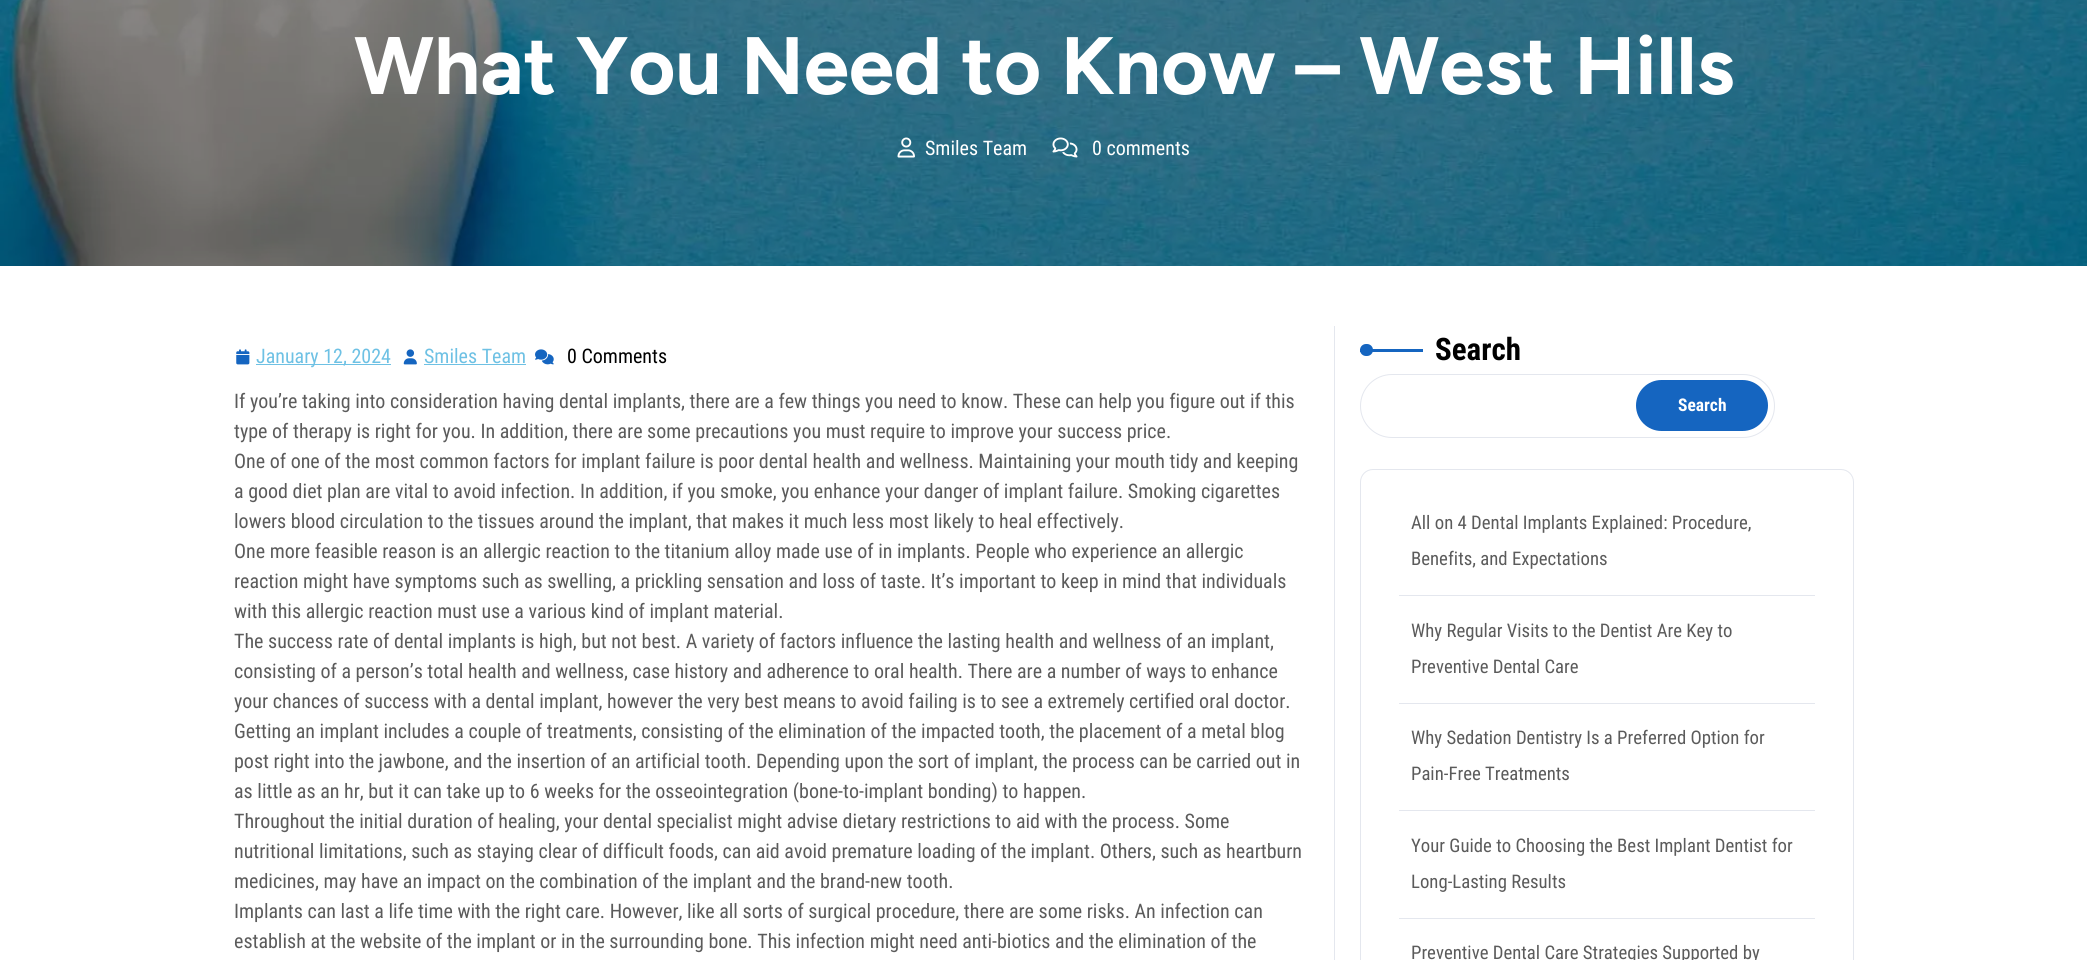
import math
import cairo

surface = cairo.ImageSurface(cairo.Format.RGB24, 2087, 960)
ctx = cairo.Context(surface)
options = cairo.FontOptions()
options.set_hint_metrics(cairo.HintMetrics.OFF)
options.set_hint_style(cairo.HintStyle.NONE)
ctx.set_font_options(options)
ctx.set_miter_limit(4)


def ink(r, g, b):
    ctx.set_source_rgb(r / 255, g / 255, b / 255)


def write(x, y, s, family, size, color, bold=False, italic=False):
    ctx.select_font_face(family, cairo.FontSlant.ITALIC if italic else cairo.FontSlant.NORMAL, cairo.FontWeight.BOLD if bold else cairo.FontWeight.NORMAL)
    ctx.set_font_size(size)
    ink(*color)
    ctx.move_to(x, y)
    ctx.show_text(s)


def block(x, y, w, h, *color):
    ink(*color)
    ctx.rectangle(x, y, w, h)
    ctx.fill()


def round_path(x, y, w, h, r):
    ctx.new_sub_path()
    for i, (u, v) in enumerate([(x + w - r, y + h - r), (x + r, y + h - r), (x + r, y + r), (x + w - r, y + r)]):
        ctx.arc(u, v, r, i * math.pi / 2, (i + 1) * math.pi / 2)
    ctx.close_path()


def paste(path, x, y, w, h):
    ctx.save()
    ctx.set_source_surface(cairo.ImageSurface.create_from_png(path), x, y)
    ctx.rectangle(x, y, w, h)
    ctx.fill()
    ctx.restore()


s1 = dict(family="Figtree", size=81.25, color=(255, 255, 255), bold=True)
s2 = dict(family="Roboto Condensed", size=20, color=(255, 255, 255))
s3 = dict(family="Roboto Condensed", size=20, color=(110, 193, 228))
s4 = dict(family="Roboto Condensed", size=20, color=(0, 0, 0))
s5 = dict(family="Roboto Condensed", size=20, color=(91, 91, 91))
s6 = dict(family="Roboto Condensed", size=31, color=(0, 0, 0), bold=True)
s7 = dict(family="Roboto Condensed", size=17.5, color=(255, 255, 255), bold=True)
s8 = dict(family="Roboto Condensed", size=18.75, color=(91, 91, 91))

ink(255, 255, 255)
ctx.paint()
paste("pic1.png", 0, 0, 2087, 266)
write(354, 94, "What You Need to Know – West Hills", **s1)
paste("pic2.png", 897, 137, 18, 21)
write(925, 155, "Smiles Team", **s2)
paste("pic3.png", 1052, 137, 26, 21)
write(1092, 155, "0 comments", **s2)
paste("pic4.png", 236, 349, 14, 16)
block(256, 364, 135, 1, 110, 193, 228)
write(256, 363, "January 12, 2024", **s3)
paste("pic5.png", 403, 349, 14, 16)
write(424, 363, "Smiles Team", **s3)
block(424, 364, 102, 1, 110, 193, 228)
paste("pic6.png", 535, 349, 19, 16)
write(567, 363, "0 Comments", **s4)
write(234, 408, "If you’re taking into consideration having dental implants, there are a few things you need to know. These can help you figure out if this", **s5)
write(234, 438, "type of therapy is right for you. In addition, there are some precautions you must require to improve your success price.", **s5)
write(234, 468, "One of one of the most common factors for implant failure is poor dental health and wellness. Maintaining your mouth tidy and keeping", **s5)
write(234, 498, "a good diet plan are vital to avoid infection. In addition, if you smoke, you enhance your danger of implant failure. Smoking cigarettes", **s5)
write(234, 528, "lowers blood circulation to the tissues around the implant, that makes it much less most likely to heal effectively.", **s5)
write(234, 558, "One more feasible reason is an allergic reaction to the titanium alloy made use of in implants. People who experience an allergic", **s5)
write(234, 588, "reaction might have symptoms such as swelling, a prickling sensation and loss of taste. It’s important to keep in mind that individuals", **s5)
write(234, 618, "with this allergic reaction must use a various kind of implant material.", **s5)
write(234, 648, "The success rate of dental implants is high, but not best. A variety of factors influence the lasting health and wellness of an implant,", **s5)
write(234, 678, "consisting of a person’s total health and wellness, case history and adherence to oral health. There are a number of ways to enhance", **s5)
write(234, 708, "your chances of success with a dental implant, however the very best means to avoid failing is to see a extremely certified oral doctor.", **s5)
write(234, 738, "Getting an implant includes a couple of treatments, consisting of the elimination of the impacted tooth, the placement of a metal blog", **s5)
write(234, 768, "post right into the jawbone, and the insertion of an artificial tooth. Depending upon the sort of implant, the process can be carried out in", **s5)
write(234, 798, "as little as an hr, but it can take up to 6 weeks for the osseointegration (bone-to-implant bonding) to happen.", **s5)
write(234, 828, "Throughout the initial duration of healing, your dental specialist might advise dietary restrictions to aid with the process. Some", **s5)
write(234, 858, "nutritional limitations, such as staying clear of difficult foods, can aid avoid premature loading of the implant. Others, such as heartburn", **s5)
write(234, 888, "medicines, may have an impact on the combination of the implant and the brand-new tooth.", **s5)
write(234, 918, "Implants can last a life time with the right care. However, like all sorts of surgical procedure, there are some risks. An infection can", **s5)
write(234, 948, "establish at the website of the implant or in the surrounding bone. This infection might need anti-biotics and the elimination of the", **s5)
block(1334, 326, 1, 634, 228, 231, 238)
block(1360, 349, 63, 3, 21, 101, 192)
round_path(1360, 344, 13, 12, 6)
ctx.fill()
write(1435, 360, "Search", **s6)
round_path(1360.5, 374.5, 414, 63, 31.5)
ink(228, 231, 238)
ctx.set_line_width(1)
ctx.stroke()
ink(21, 101, 192)
round_path(1636, 380, 132, 51, 25.5)
ctx.fill()
write(1678, 411, "Search", **s7)
round_path(1360.5, 469.5, 493, 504, 12.5)
ink(228, 231, 238)
ctx.stroke()
block(1399, 595, 416, 1, 228, 231, 238)
write(1411, 529, "All on 4 Dental Implants Explained: Procedure,", **s8)
write(1411, 565, "Benefits, and Expectations", **s8)
block(1399, 703, 416, 1, 228, 231, 238)
write(1411, 637, "Why Regular Visits to the Dentist Are Key to", **s8)
write(1411, 673, "Preventive Dental Care", **s8)
block(1399, 810, 416, 1, 228, 231, 238)
write(1411, 744, "Why Sedation Dentistry Is a Preferred Option for", **s8)
write(1411, 780, "Pain-Free Treatments", **s8)
block(1399, 918, 416, 1, 228, 231, 238)
write(1411, 852, "Your Guide to Choosing the Best Implant Dentist for", **s8)
write(1411, 888, "Long-Lasting Results", **s8)
write(1411, 959, "Preventive Dental Care Strategies Supported by", **s8)
surface.write_to_png("screenshot.png")
